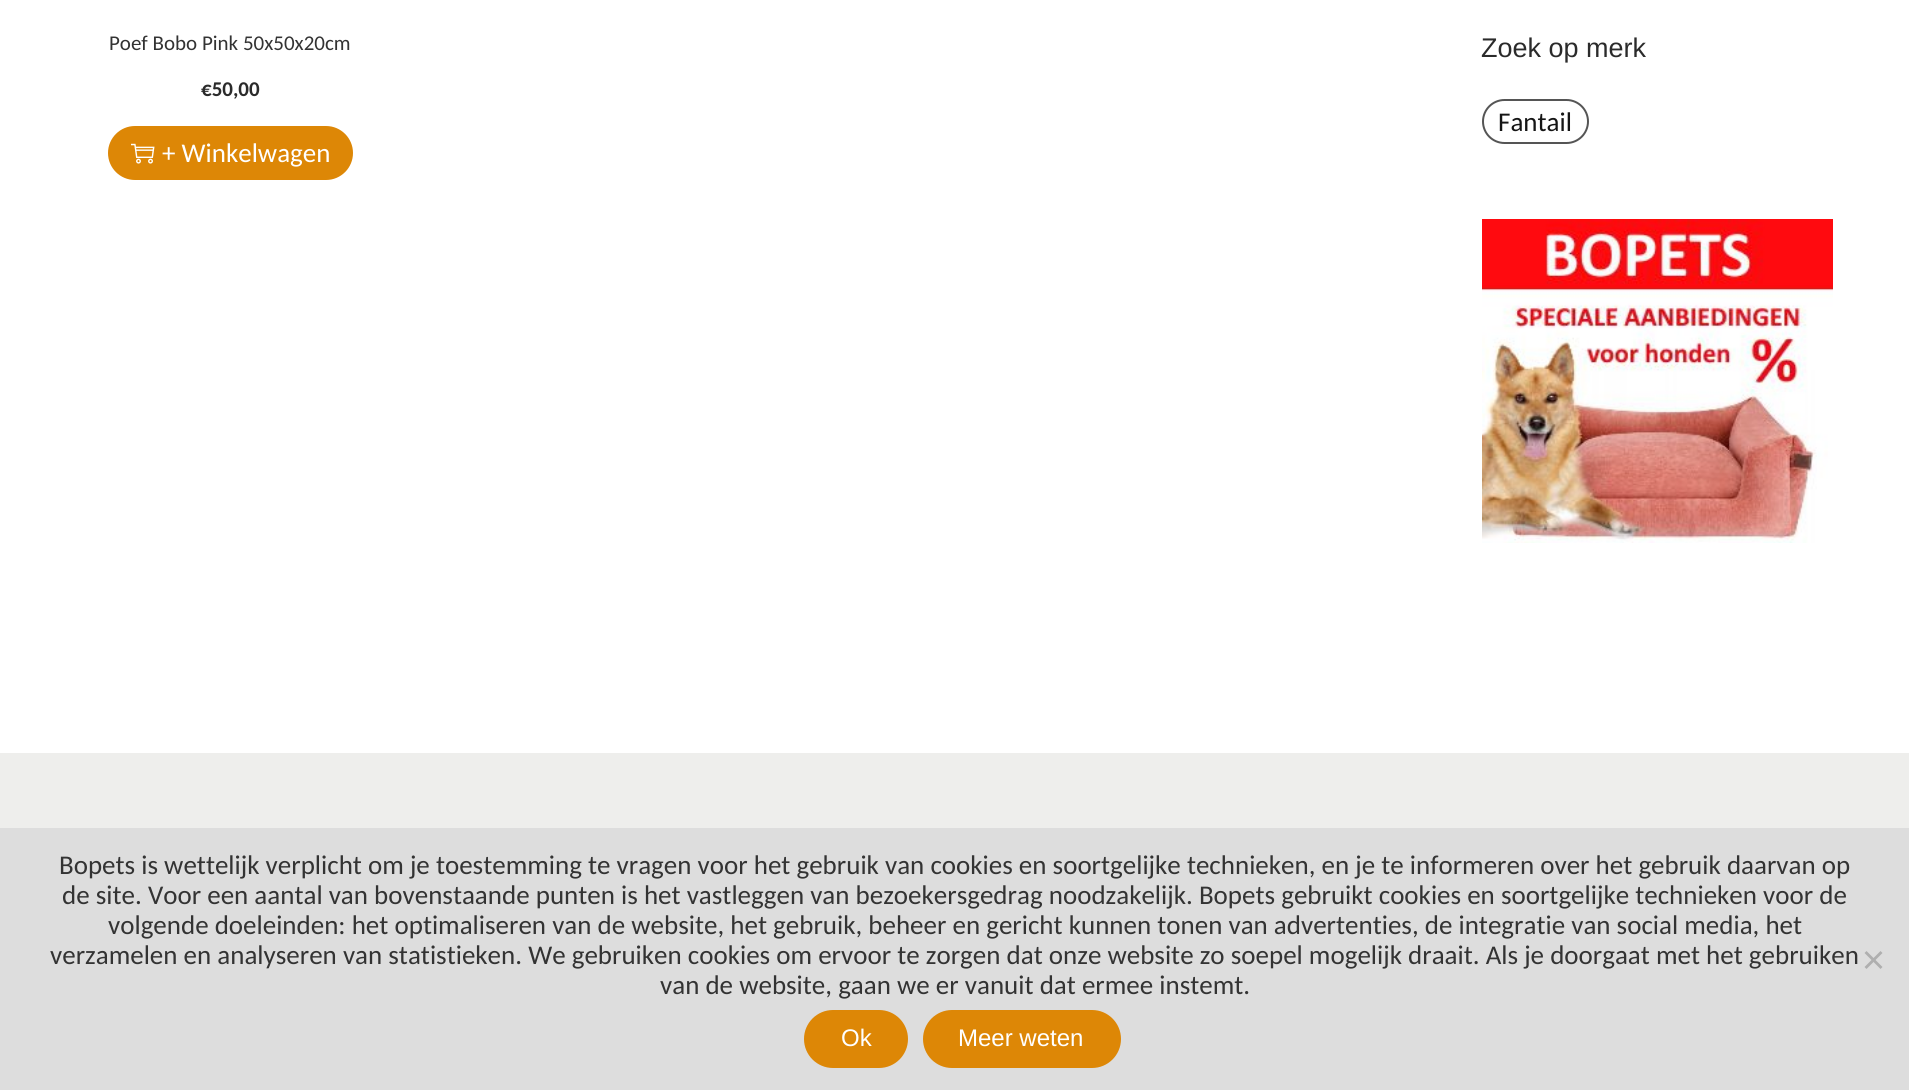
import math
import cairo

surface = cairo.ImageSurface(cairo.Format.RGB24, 1909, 1090)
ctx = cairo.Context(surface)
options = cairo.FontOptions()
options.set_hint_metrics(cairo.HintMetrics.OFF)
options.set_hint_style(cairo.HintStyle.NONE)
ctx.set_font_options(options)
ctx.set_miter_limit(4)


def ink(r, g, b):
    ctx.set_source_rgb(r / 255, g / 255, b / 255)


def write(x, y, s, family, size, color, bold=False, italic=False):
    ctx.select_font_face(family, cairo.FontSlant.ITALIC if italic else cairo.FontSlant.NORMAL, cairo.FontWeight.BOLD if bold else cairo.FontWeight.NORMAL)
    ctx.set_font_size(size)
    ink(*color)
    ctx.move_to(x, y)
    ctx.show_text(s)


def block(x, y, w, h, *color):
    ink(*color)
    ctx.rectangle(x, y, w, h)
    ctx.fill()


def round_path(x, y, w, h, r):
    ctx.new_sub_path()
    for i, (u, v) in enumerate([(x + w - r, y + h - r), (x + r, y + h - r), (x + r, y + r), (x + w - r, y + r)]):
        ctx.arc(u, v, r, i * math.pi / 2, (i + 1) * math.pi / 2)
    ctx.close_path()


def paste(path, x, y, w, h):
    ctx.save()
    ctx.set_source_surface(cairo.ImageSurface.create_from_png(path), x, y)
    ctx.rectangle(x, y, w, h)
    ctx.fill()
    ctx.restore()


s1 = dict(family="Carlito", size=21, color=(51, 51, 51))
s2 = dict(family="Carlito", size=21, color=(43, 43, 43), bold=True)
s3 = dict(family="Carlito", size=27, color=(255, 255, 255))
s4 = dict(family="Liberation Sans", size=27, color=(43, 43, 43))
s5 = dict(family="Carlito", size=27, color=(21, 21, 21))
s6 = dict(family="Carlito", size=27, color=(51, 51, 51))
s7 = dict(family="Liberation Sans", size=24, color=(255, 255, 255))

ink(255, 255, 255)
ctx.paint()
write(109, 50, "Poef Bobo Pink 50x50x20cm", **s1)
write(201, 96, "€50,00", **s2)
ink(221, 135, 6)
round_path(108, 126, 245, 54, 27)
ctx.fill()
paste("pic1.png", 131, 143, 24, 21)
write(162, 162, "+ Winkelwagen", **s3)
write(1481, 57, "Zoek op merk", **s4)
round_path(1483, 100, 105, 43, 21.5)
ink(85, 85, 85)
ctx.stroke()
write(1498, 131, "Fantail", **s5)
paste("pic2.png", 1482, 219, 351, 324)
block(0, 753, 1909, 75, 238, 238, 236)
block(0, 828, 1909, 262, 221, 221, 221)
write(59, 874, "Bopets is wettelijk verplicht om je toestemming te vragen voor het gebruik van cookies en soortgelijke technieken, en je te informeren over het gebruik daarvan op", **s6)
write(62, 904, "de site. Voor een aantal van bovenstaande punten is het vastleggen van bezoekersgedrag noodzakelijk. Bopets gebruikt cookies en soortgelijke technieken voor de", **s6)
write(108, 934, "volgende doeleinden: het optimaliseren van de website, het gebruik, beheer en gericht kunnen tonen van advertenties, de integratie van social media, het", **s6)
write(50, 964, "verzamelen en analyseren van statistieken. We gebruiken cookies om ervoor te zorgen dat onze website zo soepel mogelijk draait. Als je doorgaat met het gebruiken", **s6)
write(660, 994, "van de website, gaan we er vanuit dat ermee instemt.", **s6)
ink(175, 175, 175)
ctx.new_path()
ctx.move_to(1880.5, 951)
ctx.line_to(1882.5, 953)
ctx.line_to(1866.5, 969)
ctx.line_to(1864.5, 967)
ctx.close_path()
ctx.fill()
ctx.new_path()
ctx.move_to(1864.5, 953)
ctx.line_to(1866.5, 951)
ctx.line_to(1882.5, 967)
ctx.line_to(1880.5, 969)
ctx.close_path()
ctx.fill()
ink(221, 135, 6)
round_path(804, 1010, 104, 58, 29)
ctx.fill()
write(841, 1046, "Ok", **s7)
ink(221, 135, 6)
round_path(923, 1010, 198, 58, 29)
ctx.fill()
write(958, 1046, "Meer weten", **s7)
surface.write_to_png("screenshot.png")
